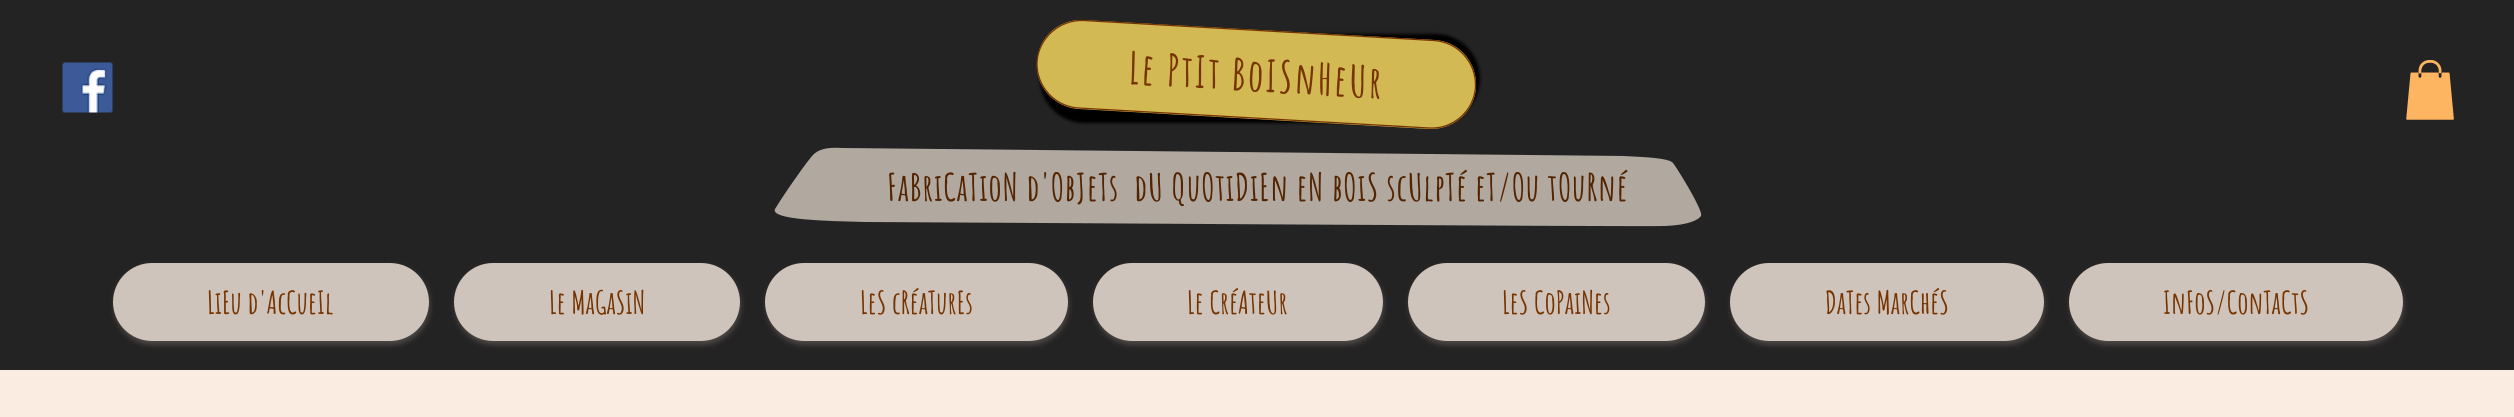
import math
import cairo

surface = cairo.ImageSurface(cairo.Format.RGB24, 2514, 417)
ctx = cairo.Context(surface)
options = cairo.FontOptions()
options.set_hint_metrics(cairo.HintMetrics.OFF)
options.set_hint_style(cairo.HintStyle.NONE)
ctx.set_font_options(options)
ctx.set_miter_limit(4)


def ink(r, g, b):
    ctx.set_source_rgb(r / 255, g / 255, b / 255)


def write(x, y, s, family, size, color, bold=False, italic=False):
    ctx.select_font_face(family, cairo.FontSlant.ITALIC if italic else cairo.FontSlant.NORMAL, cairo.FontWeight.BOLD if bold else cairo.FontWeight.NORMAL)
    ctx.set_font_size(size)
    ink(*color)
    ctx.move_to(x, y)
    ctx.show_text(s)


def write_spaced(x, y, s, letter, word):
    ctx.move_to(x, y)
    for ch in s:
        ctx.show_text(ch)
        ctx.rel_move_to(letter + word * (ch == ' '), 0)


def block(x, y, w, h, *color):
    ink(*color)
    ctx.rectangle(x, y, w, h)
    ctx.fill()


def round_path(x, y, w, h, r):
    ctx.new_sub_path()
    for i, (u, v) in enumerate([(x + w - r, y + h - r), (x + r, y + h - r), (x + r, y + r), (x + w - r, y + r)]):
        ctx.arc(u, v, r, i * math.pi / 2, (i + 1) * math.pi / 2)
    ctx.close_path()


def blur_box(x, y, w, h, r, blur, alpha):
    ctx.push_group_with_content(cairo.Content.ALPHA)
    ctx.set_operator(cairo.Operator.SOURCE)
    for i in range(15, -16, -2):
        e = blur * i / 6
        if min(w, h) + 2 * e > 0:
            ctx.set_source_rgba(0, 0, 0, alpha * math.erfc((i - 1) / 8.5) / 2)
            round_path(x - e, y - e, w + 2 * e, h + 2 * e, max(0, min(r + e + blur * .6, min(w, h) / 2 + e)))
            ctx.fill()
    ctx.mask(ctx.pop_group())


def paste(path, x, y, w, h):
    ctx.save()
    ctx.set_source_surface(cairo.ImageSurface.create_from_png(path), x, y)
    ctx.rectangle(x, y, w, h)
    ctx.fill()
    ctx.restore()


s1 = dict(family="Amatic SC", size=31.25, color=(119, 52, 0), bold=True)

ink(250, 236, 225)
ctx.paint()
block(0, 0, 2514, 370, 36, 35, 35)
paste("pic1.png", 62, 62, 51, 51)
ctx.save()
ctx.set_fill_rule(cairo.FillRule.EVEN_ODD)
ctx.new_path()
ctx.move_to(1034, 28)
ctx.line_to(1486, 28)
ctx.line_to(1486, 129)
ctx.line_to(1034, 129)
ctx.close_path()
ctx.move_to(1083.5, 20)
ctx.line_to(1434, 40)
ctx.curve_to(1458.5, 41.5, 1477.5, 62.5, 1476, 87)
ctx.curve_to(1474.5, 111.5, 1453.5, 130, 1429, 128.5)
ctx.line_to(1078.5, 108.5)
ctx.curve_to(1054, 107.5, 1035, 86.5, 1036.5, 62)
ctx.curve_to(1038, 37.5, 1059, 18.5, 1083.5, 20)
ctx.close_path()
ctx.clip()
ink(0, 0, 0)
blur_box(1040, 34, 440, 89, 44.5, 1.5, 1)
ctx.restore()
ctx.set_source_rgba(1, 0.871, 0.373, 0.8)
ctx.new_path()
ctx.move_to(1083, 20)
ctx.line_to(1434, 40)
ctx.curve_to(1459, 41, 1477, 62, 1476, 87)
ctx.curve_to(1475, 111, 1454, 130, 1429, 129)
ctx.line_to(1078, 109)
ctx.curve_to(1054, 107, 1035, 86, 1037, 62)
ctx.curve_to(1038, 37, 1059, 19, 1083, 20)
ctx.close_path()
ctx.fill()
ctx.new_path()
ctx.move_to(1083.5, 20.5)
ctx.line_to(1434, 40.5)
ctx.curve_to(1458, 42, 1476.5, 62.5, 1475.5, 87)
ctx.curve_to(1474, 111, 1453, 129.5, 1429, 128)
ctx.line_to(1078.5, 108)
ctx.curve_to(1054.5, 106.5, 1036, 86, 1037, 62)
ctx.curve_to(1038.5, 38, 1059.5, 19.5, 1083.5, 20.5)
ctx.close_path()
ink(119, 52, 0)
ctx.set_line_width(1.3)
ctx.stroke()
ctx.select_font_face("Amatic SC", cairo.FontSlant.NORMAL, cairo.FontWeight.BOLD)
ctx.set_font_size(43.75)
ctx.save()
ctx.translate(1128, 84)
ctx.rotate(3.3 * math.pi / 180)
write_spaced(0, 0, "Le PtIt BoISnHeUr", 2.2, 0)
ctx.restore()
ink(177, 168, 160)
ctx.new_path()
ctx.move_to(843, 148)
ctx.line_to(1623, 156)
ctx.curve_to(1645, 157, 1669, 158, 1673, 163)
ctx.curve_to(1675, 165, 1704, 211, 1701, 216)
ctx.curve_to(1698, 220, 1689, 225, 1665, 226)
ctx.curve_to(1649, 227, 903, 222, 865, 222)
ctx.curve_to(827, 221, 770, 220, 775, 209)
ctx.curve_to(779, 202, 799, 172, 812, 156)
ctx.curve_to(818, 149, 827, 147, 843, 148)
ctx.close_path()
ctx.fill()
ctx.set_font_size(37.5)
ink(84, 36, 0)
write_spaced(887, 201, "FaBriCaTioN d'ObJeTs  dU QuOtiDiEn eN bOiS scUlpTé eT/Ou tOuRné", 0.75, 0)
ctx.save()
ctx.set_fill_rule(cairo.FillRule.EVEN_ODD)
ctx.new_path()
ctx.move_to(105, 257)
ctx.line_to(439, 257)
ctx.line_to(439, 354)
ctx.line_to(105, 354)
ctx.close_path()
ctx.move_to(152, 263)
ctx.line_to(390, 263)
ctx.curve_to(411.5, 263, 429, 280.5, 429, 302)
ctx.curve_to(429, 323.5, 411.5, 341, 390, 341)
ctx.line_to(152, 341)
ctx.curve_to(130.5, 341, 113, 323.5, 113, 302)
ctx.curve_to(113, 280.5, 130.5, 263, 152, 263)
ctx.close_path()
ctx.clip()
ink(100, 94, 90)
blur_box(114, 266, 316, 79, 39.5, 2.5, 0.6)
ctx.restore()
ctx.set_source_rgba(0.98, 0.925, 0.882, 0.8)
round_path(113, 263, 316, 78, 39)
ctx.fill()
write(207, 314, "LiEu d'AcCueIl", **s1)
ctx.save()
ctx.set_fill_rule(cairo.FillRule.EVEN_ODD)
ctx.new_path()
ctx.move_to(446, 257)
ctx.line_to(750, 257)
ctx.line_to(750, 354)
ctx.line_to(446, 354)
ctx.close_path()
ctx.move_to(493, 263)
ctx.line_to(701, 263)
ctx.curve_to(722.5, 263, 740, 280.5, 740, 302)
ctx.curve_to(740, 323.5, 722.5, 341, 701, 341)
ctx.line_to(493, 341)
ctx.curve_to(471.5, 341, 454, 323.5, 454, 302)
ctx.curve_to(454, 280.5, 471.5, 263, 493, 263)
ctx.close_path()
ctx.clip()
ink(100, 94, 90)
blur_box(455, 266, 286, 79, 39.5, 2.5, 0.6)
ctx.restore()
ctx.set_source_rgba(0.98, 0.925, 0.882, 0.8)
round_path(454, 263, 286, 78, 39)
ctx.fill()
write(549, 314, "Le MaGaSiN", **s1)
ctx.save()
ctx.set_fill_rule(cairo.FillRule.EVEN_ODD)
ctx.new_path()
ctx.move_to(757, 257)
ctx.line_to(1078, 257)
ctx.line_to(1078, 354)
ctx.line_to(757, 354)
ctx.close_path()
ctx.move_to(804, 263)
ctx.line_to(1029, 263)
ctx.curve_to(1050.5, 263, 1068, 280.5, 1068, 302)
ctx.curve_to(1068, 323.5, 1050.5, 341, 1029, 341)
ctx.line_to(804, 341)
ctx.curve_to(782.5, 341, 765, 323.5, 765, 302)
ctx.curve_to(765, 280.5, 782.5, 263, 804, 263)
ctx.close_path()
ctx.clip()
ink(100, 94, 90)
blur_box(766, 266, 303, 79, 39.5, 2.5, 0.6)
ctx.restore()
ctx.set_source_rgba(0.98, 0.925, 0.882, 0.8)
round_path(765, 263, 303, 78, 39)
ctx.fill()
write(860, 314, "LeS cRéaTurEs", **s1)
ctx.save()
ctx.set_fill_rule(cairo.FillRule.EVEN_ODD)
ctx.new_path()
ctx.move_to(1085, 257)
ctx.line_to(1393, 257)
ctx.line_to(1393, 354)
ctx.line_to(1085, 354)
ctx.close_path()
ctx.move_to(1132, 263)
ctx.line_to(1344, 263)
ctx.curve_to(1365.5, 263, 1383, 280.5, 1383, 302)
ctx.curve_to(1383, 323.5, 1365.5, 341, 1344, 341)
ctx.line_to(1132, 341)
ctx.curve_to(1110.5, 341, 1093, 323.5, 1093, 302)
ctx.curve_to(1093, 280.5, 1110.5, 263, 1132, 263)
ctx.close_path()
ctx.clip()
ink(100, 94, 90)
blur_box(1094, 266, 290, 79, 39.5, 2.5, 0.6)
ctx.restore()
ctx.set_source_rgba(0.98, 0.925, 0.882, 0.8)
round_path(1093, 263, 290, 78, 39)
ctx.fill()
write(1187, 314, "Le CréAteUr", **s1)
ctx.save()
ctx.set_fill_rule(cairo.FillRule.EVEN_ODD)
ctx.new_path()
ctx.move_to(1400, 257)
ctx.line_to(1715, 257)
ctx.line_to(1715, 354)
ctx.line_to(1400, 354)
ctx.close_path()
ctx.move_to(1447, 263)
ctx.line_to(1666, 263)
ctx.curve_to(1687.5, 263, 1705, 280.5, 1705, 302)
ctx.curve_to(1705, 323.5, 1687.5, 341, 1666, 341)
ctx.line_to(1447, 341)
ctx.curve_to(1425.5, 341, 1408, 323.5, 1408, 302)
ctx.curve_to(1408, 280.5, 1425.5, 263, 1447, 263)
ctx.close_path()
ctx.clip()
ink(100, 94, 90)
blur_box(1409, 266, 297, 79, 39.5, 2.5, 0.6)
ctx.restore()
ctx.set_source_rgba(0.98, 0.925, 0.882, 0.8)
round_path(1408, 263, 297, 78, 39)
ctx.fill()
write(1502, 314, "LeS CoPaiNes", **s1)
ctx.save()
ctx.set_fill_rule(cairo.FillRule.EVEN_ODD)
ctx.new_path()
ctx.move_to(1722, 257)
ctx.line_to(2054, 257)
ctx.line_to(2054, 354)
ctx.line_to(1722, 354)
ctx.close_path()
ctx.move_to(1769, 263)
ctx.line_to(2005, 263)
ctx.curve_to(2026.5, 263, 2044, 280.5, 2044, 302)
ctx.curve_to(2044, 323.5, 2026.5, 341, 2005, 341)
ctx.line_to(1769, 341)
ctx.curve_to(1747.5, 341, 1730, 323.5, 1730, 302)
ctx.curve_to(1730, 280.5, 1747.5, 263, 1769, 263)
ctx.close_path()
ctx.clip()
ink(100, 94, 90)
blur_box(1731, 266, 314, 79, 39.5, 2.5, 0.6)
ctx.restore()
ctx.set_source_rgba(0.98, 0.925, 0.882, 0.8)
round_path(1730, 263, 314, 78, 39)
ctx.fill()
write(1825, 314, "DaTes MarChéS", **s1)
ctx.save()
ctx.set_fill_rule(cairo.FillRule.EVEN_ODD)
ctx.new_path()
ctx.move_to(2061, 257)
ctx.line_to(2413, 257)
ctx.line_to(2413, 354)
ctx.line_to(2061, 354)
ctx.close_path()
ctx.move_to(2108, 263)
ctx.line_to(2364, 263)
ctx.curve_to(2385.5, 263, 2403, 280.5, 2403, 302)
ctx.curve_to(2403, 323.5, 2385.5, 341, 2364, 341)
ctx.line_to(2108, 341)
ctx.curve_to(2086.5, 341, 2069, 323.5, 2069, 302)
ctx.curve_to(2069, 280.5, 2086.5, 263, 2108, 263)
ctx.close_path()
ctx.clip()
ink(100, 94, 90)
blur_box(2070, 266, 334, 79, 39.5, 2.5, 0.6)
ctx.restore()
ctx.set_source_rgba(0.98, 0.925, 0.882, 0.8)
round_path(2069, 263, 334, 78, 39)
ctx.fill()
write(2163, 314, "InFoS/ConTaCtS", **s1)
paste("pic2.png", 2406, 60, 48, 60)
surface.write_to_png("screenshot.png")
